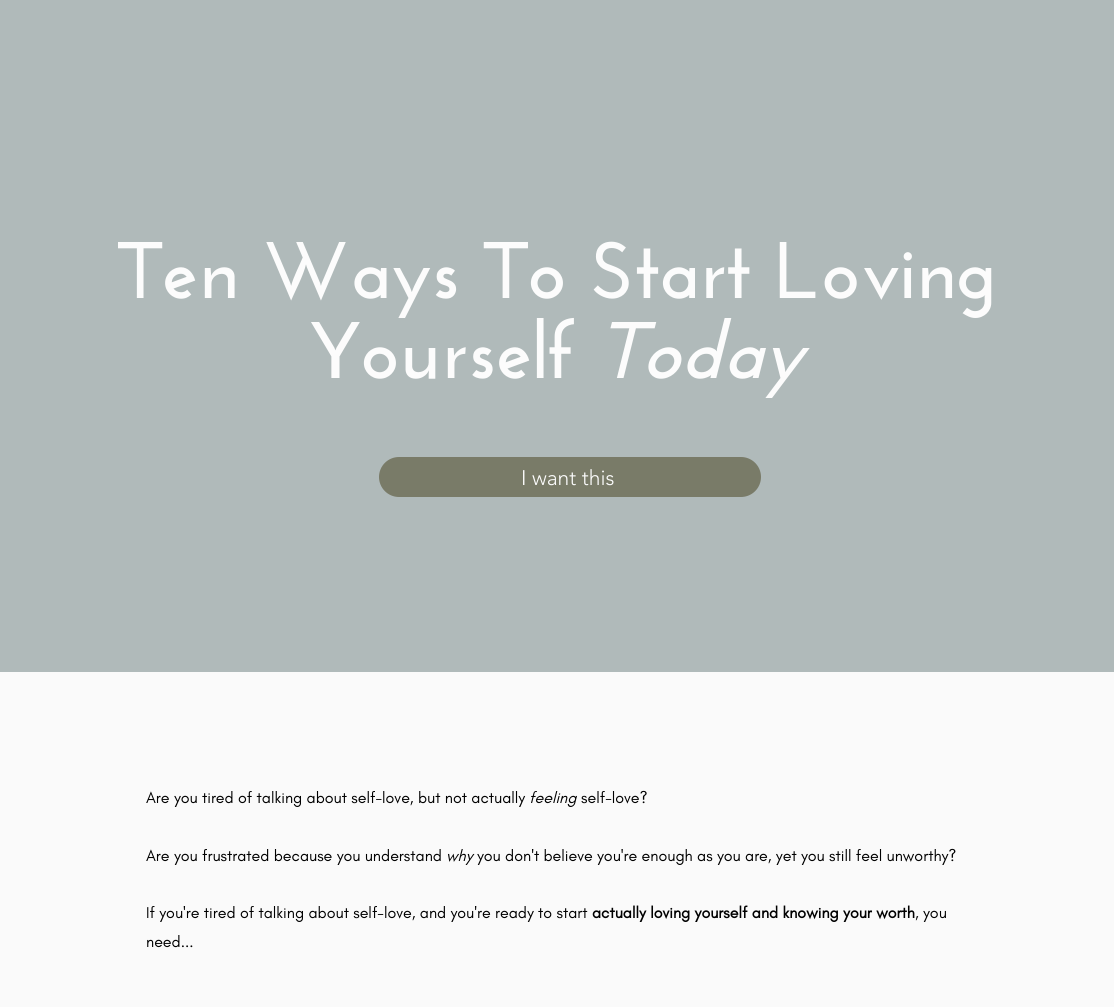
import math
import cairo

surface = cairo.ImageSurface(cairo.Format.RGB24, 1114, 1007)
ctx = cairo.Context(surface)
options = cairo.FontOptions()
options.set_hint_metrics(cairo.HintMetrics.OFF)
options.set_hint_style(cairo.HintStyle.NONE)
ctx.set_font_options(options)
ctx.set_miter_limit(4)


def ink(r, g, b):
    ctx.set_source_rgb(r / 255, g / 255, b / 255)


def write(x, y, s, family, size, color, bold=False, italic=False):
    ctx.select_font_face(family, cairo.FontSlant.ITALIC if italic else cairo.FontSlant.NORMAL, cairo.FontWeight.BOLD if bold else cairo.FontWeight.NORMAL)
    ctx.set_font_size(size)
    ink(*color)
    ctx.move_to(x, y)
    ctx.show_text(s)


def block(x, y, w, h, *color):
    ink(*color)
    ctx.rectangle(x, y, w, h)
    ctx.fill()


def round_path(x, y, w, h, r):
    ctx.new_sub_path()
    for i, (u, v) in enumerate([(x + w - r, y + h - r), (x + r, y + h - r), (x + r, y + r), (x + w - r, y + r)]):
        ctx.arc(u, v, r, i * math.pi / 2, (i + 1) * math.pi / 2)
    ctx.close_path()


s1 = dict(family="Josefin Sans", size=80, color=(252, 252, 252), bold=True)
s2 = dict(family="Josefin Sans", size=80, color=(252, 252, 252), bold=True, italic=True)
s3 = dict(family="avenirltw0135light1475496 Light", size=21, color=(252, 252, 252))
s4 = dict(family="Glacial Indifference", size=16, color=(0, 0, 0))
s5 = dict(family="Glacial Indifference", size=16, color=(0, 0, 0), italic=True)
s6 = dict(family="Glacial Indifference", size=16, color=(0, 0, 0), bold=True)

ink(176, 186, 186)
ctx.paint()
write(118, 298, "Ten Ways To Start Loving", **s1)
write(310, 378, "Yourself", **s1)
write(598, 378, "Today", **s2)
ink(121, 123, 104)
round_path(379, 457, 382, 40, 20)
ctx.fill()
write(521, 485, "I want this", **s3)
block(0, 672, 1114, 335, 250, 250, 250)
write(146, 803, "Are you tired of talking about self-love, but not actually", **s4)
write(529, 803, "feeling", **s5)
write(581, 803, "self-love?", **s4)
write(146, 861, "Are you frustrated because you understand", **s4)
write(446, 861, "why", **s5)
write(477, 861, "you don't believe you're enough as you are, yet you still feel unworthy?", **s4)
write(146, 918, "If you're tired of talking about self-love, and you're ready to start", **s4)
write(592, 918, "actually loving yourself and knowing your worth", **s6)
write(915, 918, ", you", **s4)
write(146, 947, "need...", **s4)
surface.write_to_png("screenshot.png")
